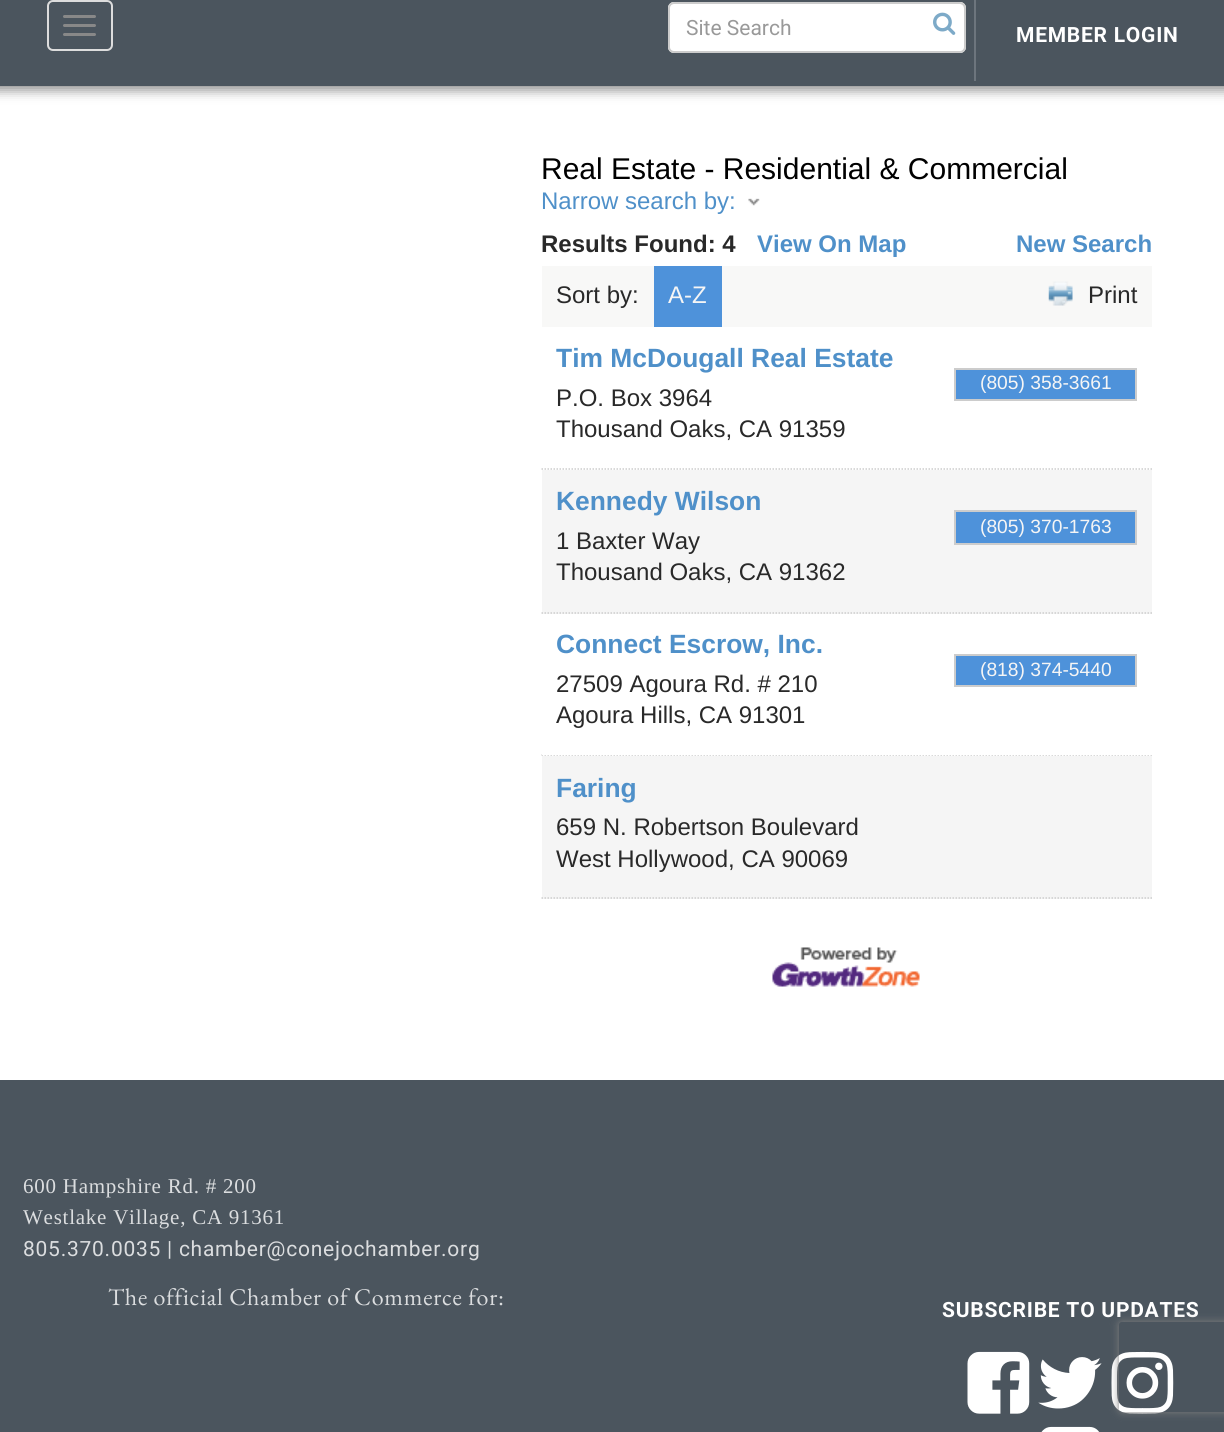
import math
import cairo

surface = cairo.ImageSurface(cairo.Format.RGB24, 1224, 1432)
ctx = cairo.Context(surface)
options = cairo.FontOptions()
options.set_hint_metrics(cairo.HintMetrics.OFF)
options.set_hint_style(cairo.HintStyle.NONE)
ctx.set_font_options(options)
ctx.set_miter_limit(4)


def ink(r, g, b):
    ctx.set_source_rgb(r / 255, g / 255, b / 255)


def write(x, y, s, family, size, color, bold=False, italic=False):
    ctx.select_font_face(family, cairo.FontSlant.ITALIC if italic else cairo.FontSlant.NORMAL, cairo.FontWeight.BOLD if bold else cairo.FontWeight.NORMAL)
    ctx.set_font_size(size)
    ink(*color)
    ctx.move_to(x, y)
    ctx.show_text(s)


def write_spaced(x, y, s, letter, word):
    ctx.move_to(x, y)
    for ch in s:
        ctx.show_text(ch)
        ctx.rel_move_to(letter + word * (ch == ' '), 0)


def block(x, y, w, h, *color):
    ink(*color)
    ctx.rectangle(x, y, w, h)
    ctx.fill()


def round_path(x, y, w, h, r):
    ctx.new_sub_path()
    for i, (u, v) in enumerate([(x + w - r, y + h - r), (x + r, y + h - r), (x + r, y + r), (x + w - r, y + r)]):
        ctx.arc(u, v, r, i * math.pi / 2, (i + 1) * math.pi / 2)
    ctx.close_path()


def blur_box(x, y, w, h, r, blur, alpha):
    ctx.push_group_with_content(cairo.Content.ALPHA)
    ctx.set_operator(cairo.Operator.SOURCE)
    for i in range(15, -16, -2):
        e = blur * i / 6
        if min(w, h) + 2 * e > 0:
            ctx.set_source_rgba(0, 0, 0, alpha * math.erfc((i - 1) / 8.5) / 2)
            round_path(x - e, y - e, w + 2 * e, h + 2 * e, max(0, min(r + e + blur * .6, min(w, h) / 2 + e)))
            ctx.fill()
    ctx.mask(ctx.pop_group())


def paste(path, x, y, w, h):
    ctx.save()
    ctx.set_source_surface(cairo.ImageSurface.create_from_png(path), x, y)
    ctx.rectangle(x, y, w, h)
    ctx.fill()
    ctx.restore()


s1 = dict(family="Roboto", size=21, color=(153, 153, 153))
s2 = dict(family="Liberation Sans", size=30, color=(0, 0, 0))
s3 = dict(family="Liberation Sans", size=24, color=(79, 144, 201))
s4 = dict(family="Liberation Sans", size=24, color=(41, 41, 41), bold=True)
s5 = dict(family="Liberation Sans", size=24, color=(79, 144, 201), bold=True)
s6 = dict(family="Liberation Sans", size=24, color=(41, 41, 41))
s7 = dict(family="Liberation Sans", size=24, color=(245, 245, 245))
s8 = dict(family="Liberation Sans", size=26.4, color=(79, 144, 201), bold=True)
s9 = dict(family="Liberation Sans", size=19.25, color=(245, 245, 245))

ink(255, 255, 255)
ctx.paint()
ink(0, 0, 0)
blur_box(-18, -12, 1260, 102, 0, 6, 0.46)
block(0, 0, 1224, 86, 75, 85, 94)
round_path(48, 1, 64, 49, 5)
ink(221, 221, 221)
ctx.stroke()
ink(136, 136, 136)
round_path(63, 15, 33, 3, 1.5)
ctx.fill()
round_path(63, 24, 33, 3, 1.5)
ctx.fill()
round_path(63, 33, 33, 3, 1.5)
ctx.fill()
ink(255, 255, 255)
round_path(668, 2, 298, 51, 6)
ctx.fill()
ink(236, 236, 236)
ctx.new_path()
ctx.move_to(674, 4)
ctx.line_to(960, 4)
ctx.curve_to(962, 4, 964, 7, 964, 9)
ctx.line_to(964, 49)
ctx.curve_to(965, 48, 965, 47, 965, 46)
ctx.line_to(965, 8)
ctx.curve_to(965, 5, 963, 3, 960, 3)
ctx.line_to(674, 3)
ctx.curve_to(671, 3, 669, 5, 669, 8)
ctx.line_to(669, 9)
ctx.curve_to(669, 7, 671, 4, 674, 4)
ctx.close_path()
ctx.fill()
round_path(669, 3, 296, 49, 5)
ink(204, 204, 204)
ctx.stroke()
write(686, 35, "Site Search", **s1)
paste("pic1.png", 933, 12, 23, 23)
block(974, 0, 2, 81, 109, 117, 125)
ctx.select_font_face("Roboto", cairo.FontSlant.NORMAL, cairo.FontWeight.BOLD)
ink(255, 255, 255)
write_spaced(1016, 42, "MEMBER LOGIN", 0.75, 0)
write(541, 179, "Real Estate - Residential & Commercial", **s2)
write(541, 209, "Narrow search by:", **s3)
paste("pic2.png", 748, 198, 12, 8)
write(541, 252, "Results Found: 4", **s4)
write(757, 252, "View On Map", **s5)
write(1016, 252, "New Search", **s5)
block(542, 266, 610, 61, 248, 248, 247)
write(556, 303, "Sort by:", **s6)
block(654, 266, 68, 61, 78, 146, 218)
write(668, 303, "A-Z", **s7)
paste("pic3.png", 1048, 281, 25, 25)
write(1088, 303, "Print", **s6)
ctx.new_path()
ctx.move_to(541.5, 469)
ctx.line_to(1152, 469)
ink(204, 204, 204)
ctx.set_line_width(1.5)
ctx.set_dash([1.5, 1.5])
ctx.stroke()
write(556, 367, "Tim McDougall Real Estate", **s8)
write(556, 406, "P.O. Box 3964", **s6)
write(556, 437, "Thousand Oaks, CA 91359", **s6)
ink(78, 146, 218)
ctx.rectangle(955, 369, 181, 31)
ctx.fill_preserve()
ink(204, 204, 204)
ctx.set_line_width(2)
ctx.set_dash([])
ctx.stroke()
write(980, 389, "(805) 358-3661", **s9)
block(542, 470, 610, 144, 245, 245, 245)
ctx.new_path()
ctx.move_to(541.5, 613)
ctx.line_to(1152, 613)
ink(204, 204, 204)
ctx.set_line_width(1.5)
ctx.set_dash([1.5, 1.5])
ctx.stroke()
write(556, 510, "Kennedy Wilson", **s8)
write(556, 549, "1 Baxter Way", **s6)
write(556, 580, "Thousand Oaks, CA 91362", **s6)
ink(78, 146, 218)
ctx.rectangle(955, 511, 181, 33)
ctx.fill_preserve()
ink(204, 204, 204)
ctx.set_line_width(2)
ctx.set_dash([])
ctx.stroke()
write(980, 533, "(805) 370-1763", **s9)
ctx.new_path()
ctx.move_to(541.5, 755)
ctx.line_to(1152, 755)
ink(204, 204, 204)
ctx.set_line_width(1.5)
ctx.set_dash([1.5, 1.5])
ctx.stroke()
block(542, 754, 610, 1, 255, 255, 255)
write(556, 653, "Connect Escrow, Inc.", **s8)
write(556, 692, "27509 Agoura Rd. # 210", **s6)
write(556, 723, "Agoura Hills, CA 91301", **s6)
ink(78, 146, 218)
ctx.rectangle(955, 655, 181, 31)
ctx.fill_preserve()
ink(204, 204, 204)
ctx.set_line_width(2)
ctx.set_dash([])
ctx.stroke()
write(980, 676, "(818) 374-5440", **s9)
block(542, 756, 610, 143, 245, 245, 245)
ctx.new_path()
ctx.move_to(541.5, 898)
ctx.line_to(1152, 898)
ink(204, 204, 204)
ctx.set_line_width(1.5)
ctx.set_dash([1.5, 1.5])
ctx.stroke()
write(556, 797, "Faring", **s8)
write(556, 835, "659 N. Robertson Boulevard", **s6)
write(556, 867, "West Hollywood, CA 90069", **s6)
paste("pic4.png", 772, 947, 148, 40)
block(0, 1080, 1224, 352, 75, 85, 94)
ctx.select_font_face("Liberation Serif")
ctx.set_font_size(21)
ink(219, 221, 223)
write_spaced(23, 1193, "600 Hampshire Rd. # 200", 0.75, 0)
write_spaced(23, 1224, "Westlake Village, CA 91361", 0.75, 0)
ctx.select_font_face("Roboto")
write_spaced(23, 1256, "805.370.0035 | chamber@conejochamber.org", 0.75, 0)
ctx.select_font_face("EB Garamond")
ctx.set_font_size(24)
write_spaced(108, 1305, "The official Chamber of Commerce for:", 0.75, 0)
ctx.select_font_face("Roboto", cairo.FontSlant.NORMAL, cairo.FontWeight.BOLD)
ctx.set_font_size(21)
ink(255, 255, 255)
write_spaced(942, 1317, "SUBSCRIBE TO UPDATES", 0.75, 0)
paste("pic5.png", 967, 1351, 63, 63)
paste("pic6.png", 1038, 1357, 64, 52)
paste("pic7.png", 1111, 1351, 63, 63)
paste("pic8.png", 1041, 1426, 59, 6)
ctx.save()
ctx.set_fill_rule(cairo.FillRule.EVEN_ODD)
ctx.new_path()
ctx.move_to(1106, 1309)
ctx.line_to(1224, 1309)
ctx.line_to(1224, 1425)
ctx.line_to(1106, 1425)
ctx.close_path()
ctx.move_to(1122, 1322)
ctx.line_to(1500, 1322)
ctx.curve_to(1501.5, 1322, 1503, 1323.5, 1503, 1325)
ctx.line_to(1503, 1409)
ctx.curve_to(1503, 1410.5, 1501.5, 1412, 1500, 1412)
ctx.line_to(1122, 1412)
ctx.curve_to(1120.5, 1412, 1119, 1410.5, 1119, 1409)
ctx.line_to(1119, 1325)
ctx.curve_to(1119, 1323.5, 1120.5, 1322, 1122, 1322)
ctx.close_path()
ctx.clip()
ink(128, 128, 128)
blur_box(1119, 1322, 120, 90, 3, 4, 1)
ctx.restore()
surface.write_to_png("screenshot.png")
